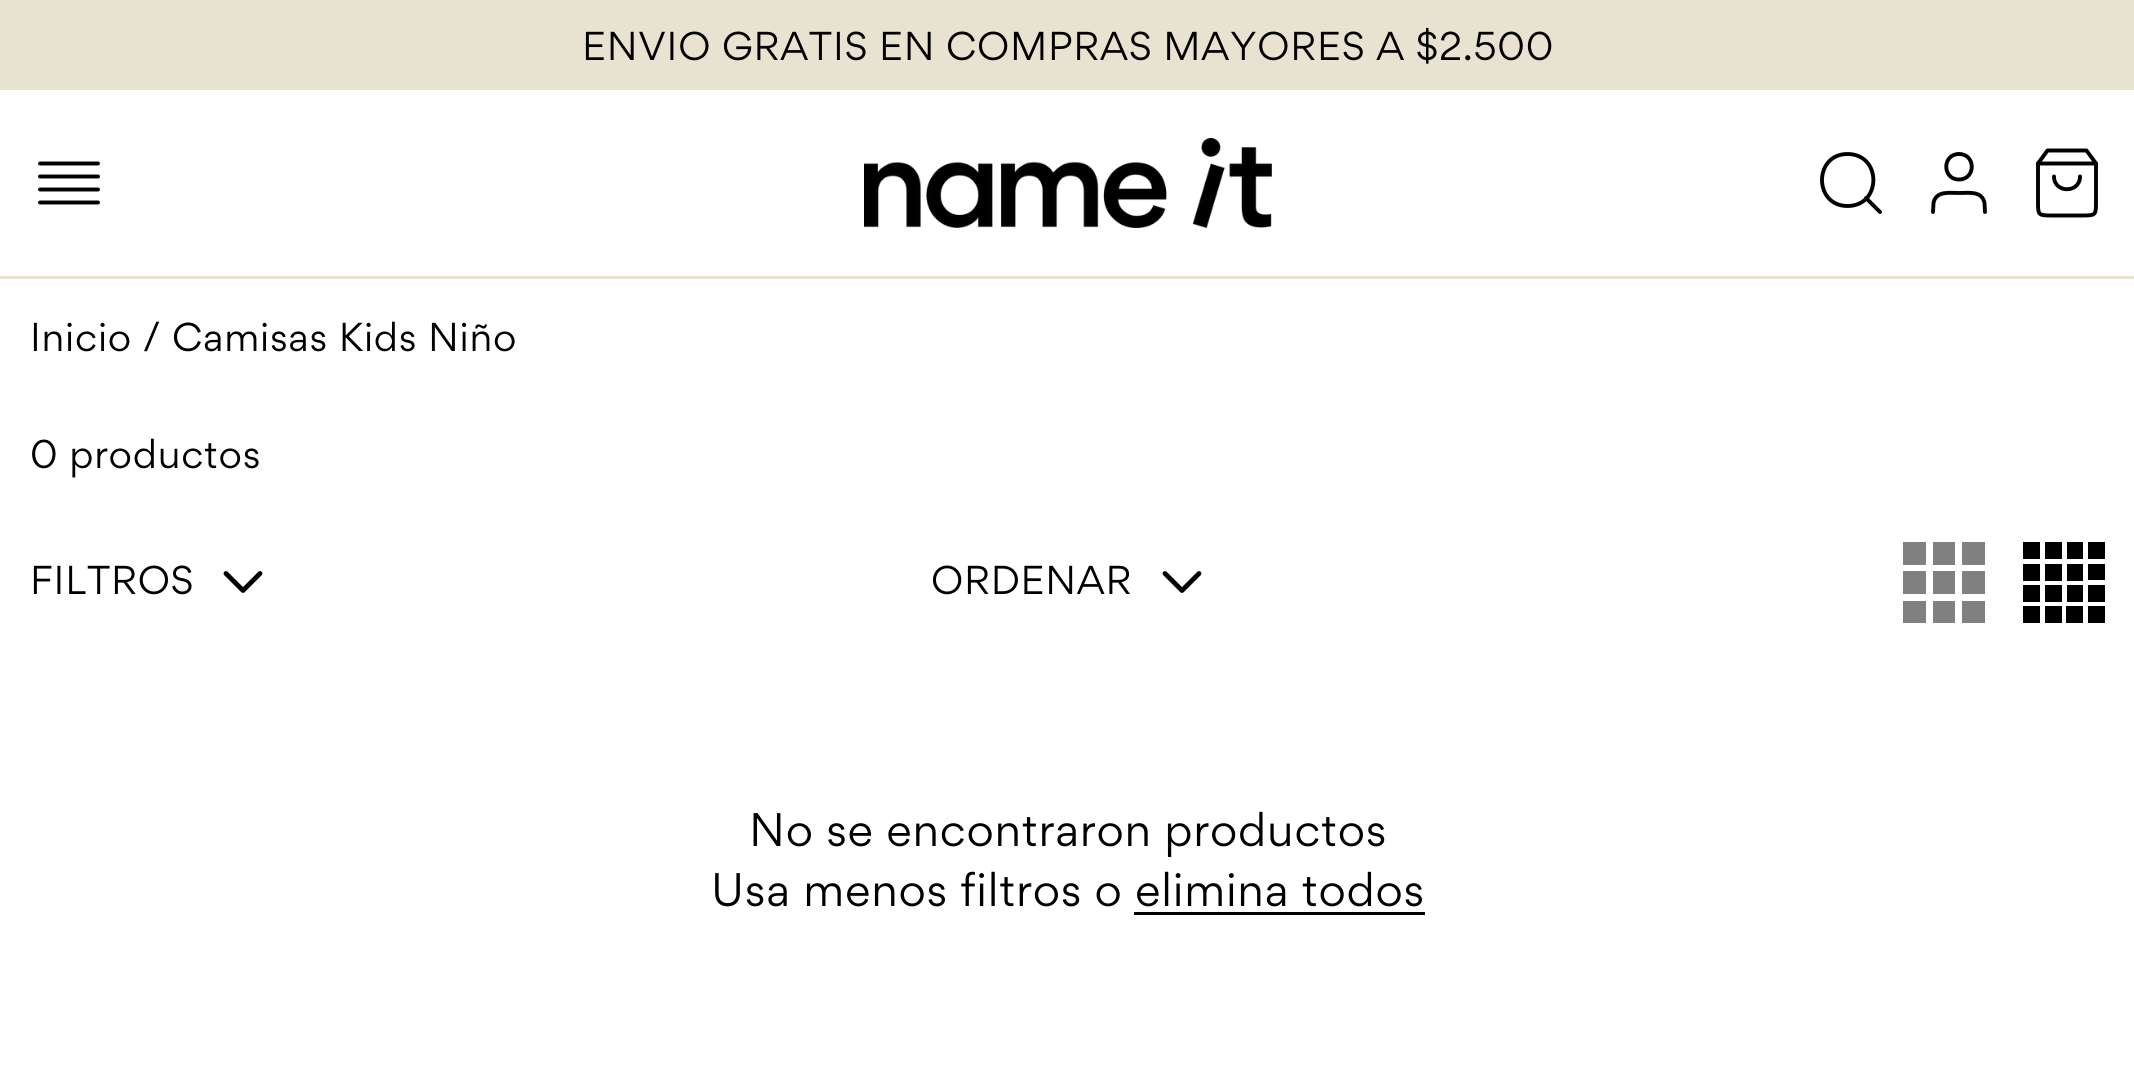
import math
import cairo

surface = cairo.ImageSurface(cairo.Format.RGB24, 2134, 1086)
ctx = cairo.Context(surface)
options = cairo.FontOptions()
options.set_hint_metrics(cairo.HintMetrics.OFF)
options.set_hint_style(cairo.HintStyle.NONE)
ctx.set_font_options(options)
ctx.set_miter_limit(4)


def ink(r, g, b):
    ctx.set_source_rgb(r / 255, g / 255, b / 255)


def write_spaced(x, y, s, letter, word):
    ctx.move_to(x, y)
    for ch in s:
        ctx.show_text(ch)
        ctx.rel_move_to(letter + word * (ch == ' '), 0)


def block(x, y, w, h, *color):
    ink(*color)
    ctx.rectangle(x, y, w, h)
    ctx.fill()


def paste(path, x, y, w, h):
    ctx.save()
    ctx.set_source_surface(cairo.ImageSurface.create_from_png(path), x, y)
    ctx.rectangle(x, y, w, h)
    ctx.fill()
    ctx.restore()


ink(255, 255, 255)
ctx.paint()
block(0, 0, 2134, 90, 231, 227, 208)
ctx.select_font_face("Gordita")
ctx.set_font_size(36)
ink(0, 0, 0)
write_spaced(582, 60, "ENVIO GRATIS EN COMPRAS MAYORES A $2.500", 0.75, 0)
block(0, 276, 2134, 3, 231, 227, 208)
ctx.new_path()
ctx.move_to(98, 176.5)
ctx.line_to(40, 176.5)
ctx.move_to(98, 163.5)
ctx.line_to(40, 163.5)
ctx.move_to(98, 189.5)
ctx.line_to(40, 189.5)
ctx.move_to(98, 202.5)
ctx.line_to(40, 202.5)
ink(0, 0, 0)
ctx.set_line_width(3.9)
ctx.set_line_cap(cairo.LineCap.ROUND)
ctx.set_line_join(cairo.LineJoin.ROUND)
ctx.stroke()
paste("pic1.png", 864, 138, 408, 90)
ctx.new_path()
ctx.move_to(1847.5, 206)
ctx.curve_to(1882, 206, 1882, 154, 1847.5, 154)
ctx.curve_to(1813.5, 154, 1813.5, 206, 1847.5, 206)
ctx.close_path()
ctx.move_to(1880, 212)
ctx.line_to(1866, 198)
ctx.stroke()
ctx.new_path()
ctx.move_to(1985, 212)
ctx.line_to(1984.5, 203)
ctx.curve_to(1982, 190.5, 1968.5, 193, 1959, 193)
ctx.curve_to(1949.5, 193, 1936, 190.5, 1933.5, 203)
ctx.line_to(1933, 212)
ctx.move_to(1959, 179.5)
ctx.curve_to(1976, 179.5, 1976, 154, 1959, 154)
ctx.curve_to(1942, 154, 1942, 179.5, 1959, 179.5)
ctx.close_path()
ctx.stroke()
ctx.new_path()
ctx.move_to(2047.5, 150.5)
ctx.line_to(2038, 163.5)
ctx.line_to(2038, 201.5)
ctx.curve_to(2038, 215, 2038, 215.5, 2052, 215.5)
ctx.line_to(2082, 215.5)
ctx.curve_to(2096, 215.5, 2096, 215, 2096, 201.5)
ctx.line_to(2096, 163.5)
ctx.line_to(2086.5, 150.5)
ctx.close_path()
ctx.stroke()
ctx.new_path()
ctx.move_to(2038, 163.5)
ctx.line_to(2096, 163.5)
ctx.move_to(2080, 176.5)
ctx.curve_to(2080, 193.5, 2054, 193.5, 2054, 176.5)
ctx.stroke()
write_spaced(30, 351, "Inicio / Camisas Kids Niño", 0.75, 0)
write_spaced(30, 468, "0 productos", 0.75, 0)
write_spaced(30, 594, "FILTROS", 0.75, 0)
ctx.new_path()
ctx.move_to(226, 573.5)
ctx.line_to(243, 590.5)
ctx.line_to(260, 573.5)
ctx.set_line_width(4.8)
ctx.stroke()
write_spaced(931, 594, "ORDENAR", 0.75, 0)
ctx.new_path()
ctx.move_to(1165, 573.5)
ctx.line_to(1182, 590.5)
ctx.line_to(1199, 573.5)
ctx.stroke()
block(1903, 542, 23, 23, 128, 128, 128)
block(1933, 542, 22, 23, 128, 128, 128)
block(1962, 542, 23, 23, 128, 128, 128)
block(1903, 571, 23, 23, 128, 128, 128)
block(1933, 571, 22, 23, 128, 128, 128)
block(1962, 571, 23, 23, 128, 128, 128)
block(1903, 601, 23, 22, 128, 128, 128)
block(1933, 601, 22, 22, 128, 128, 128)
block(1962, 601, 23, 22, 128, 128, 128)
block(2023, 542, 17, 17, 0, 0, 0)
block(2045, 542, 17, 17, 0, 0, 0)
block(2067, 542, 16, 17, 0, 0, 0)
block(2088, 542, 17, 17, 0, 0, 0)
block(2088, 564, 17, 16, 0, 0, 0)
block(2088, 585, 17, 17, 0, 0, 0)
block(2088, 606, 17, 17, 0, 0, 0)
block(2066, 606, 17, 17, 0, 0, 0)
block(2045, 606, 17, 17, 0, 0, 0)
block(2023, 606, 17, 17, 0, 0, 0)
block(2023, 564, 17, 17, 0, 0, 0)
block(2045, 564, 17, 17, 0, 0, 0)
block(2067, 564, 16, 17, 0, 0, 0)
block(2023, 585, 17, 17, 0, 0, 0)
block(2045, 585, 17, 17, 0, 0, 0)
block(2067, 585, 16, 17, 0, 0, 0)
ctx.set_font_size(42)
write_spaced(749, 846, "No se encontraron productos", 0.75, 0)
write_spaced(711, 906, "Usa menos filtros o elimina todos", 0.75, 0)
block(1134, 912, 291, 3, 0, 0, 0)
surface.write_to_png("screenshot.png")
